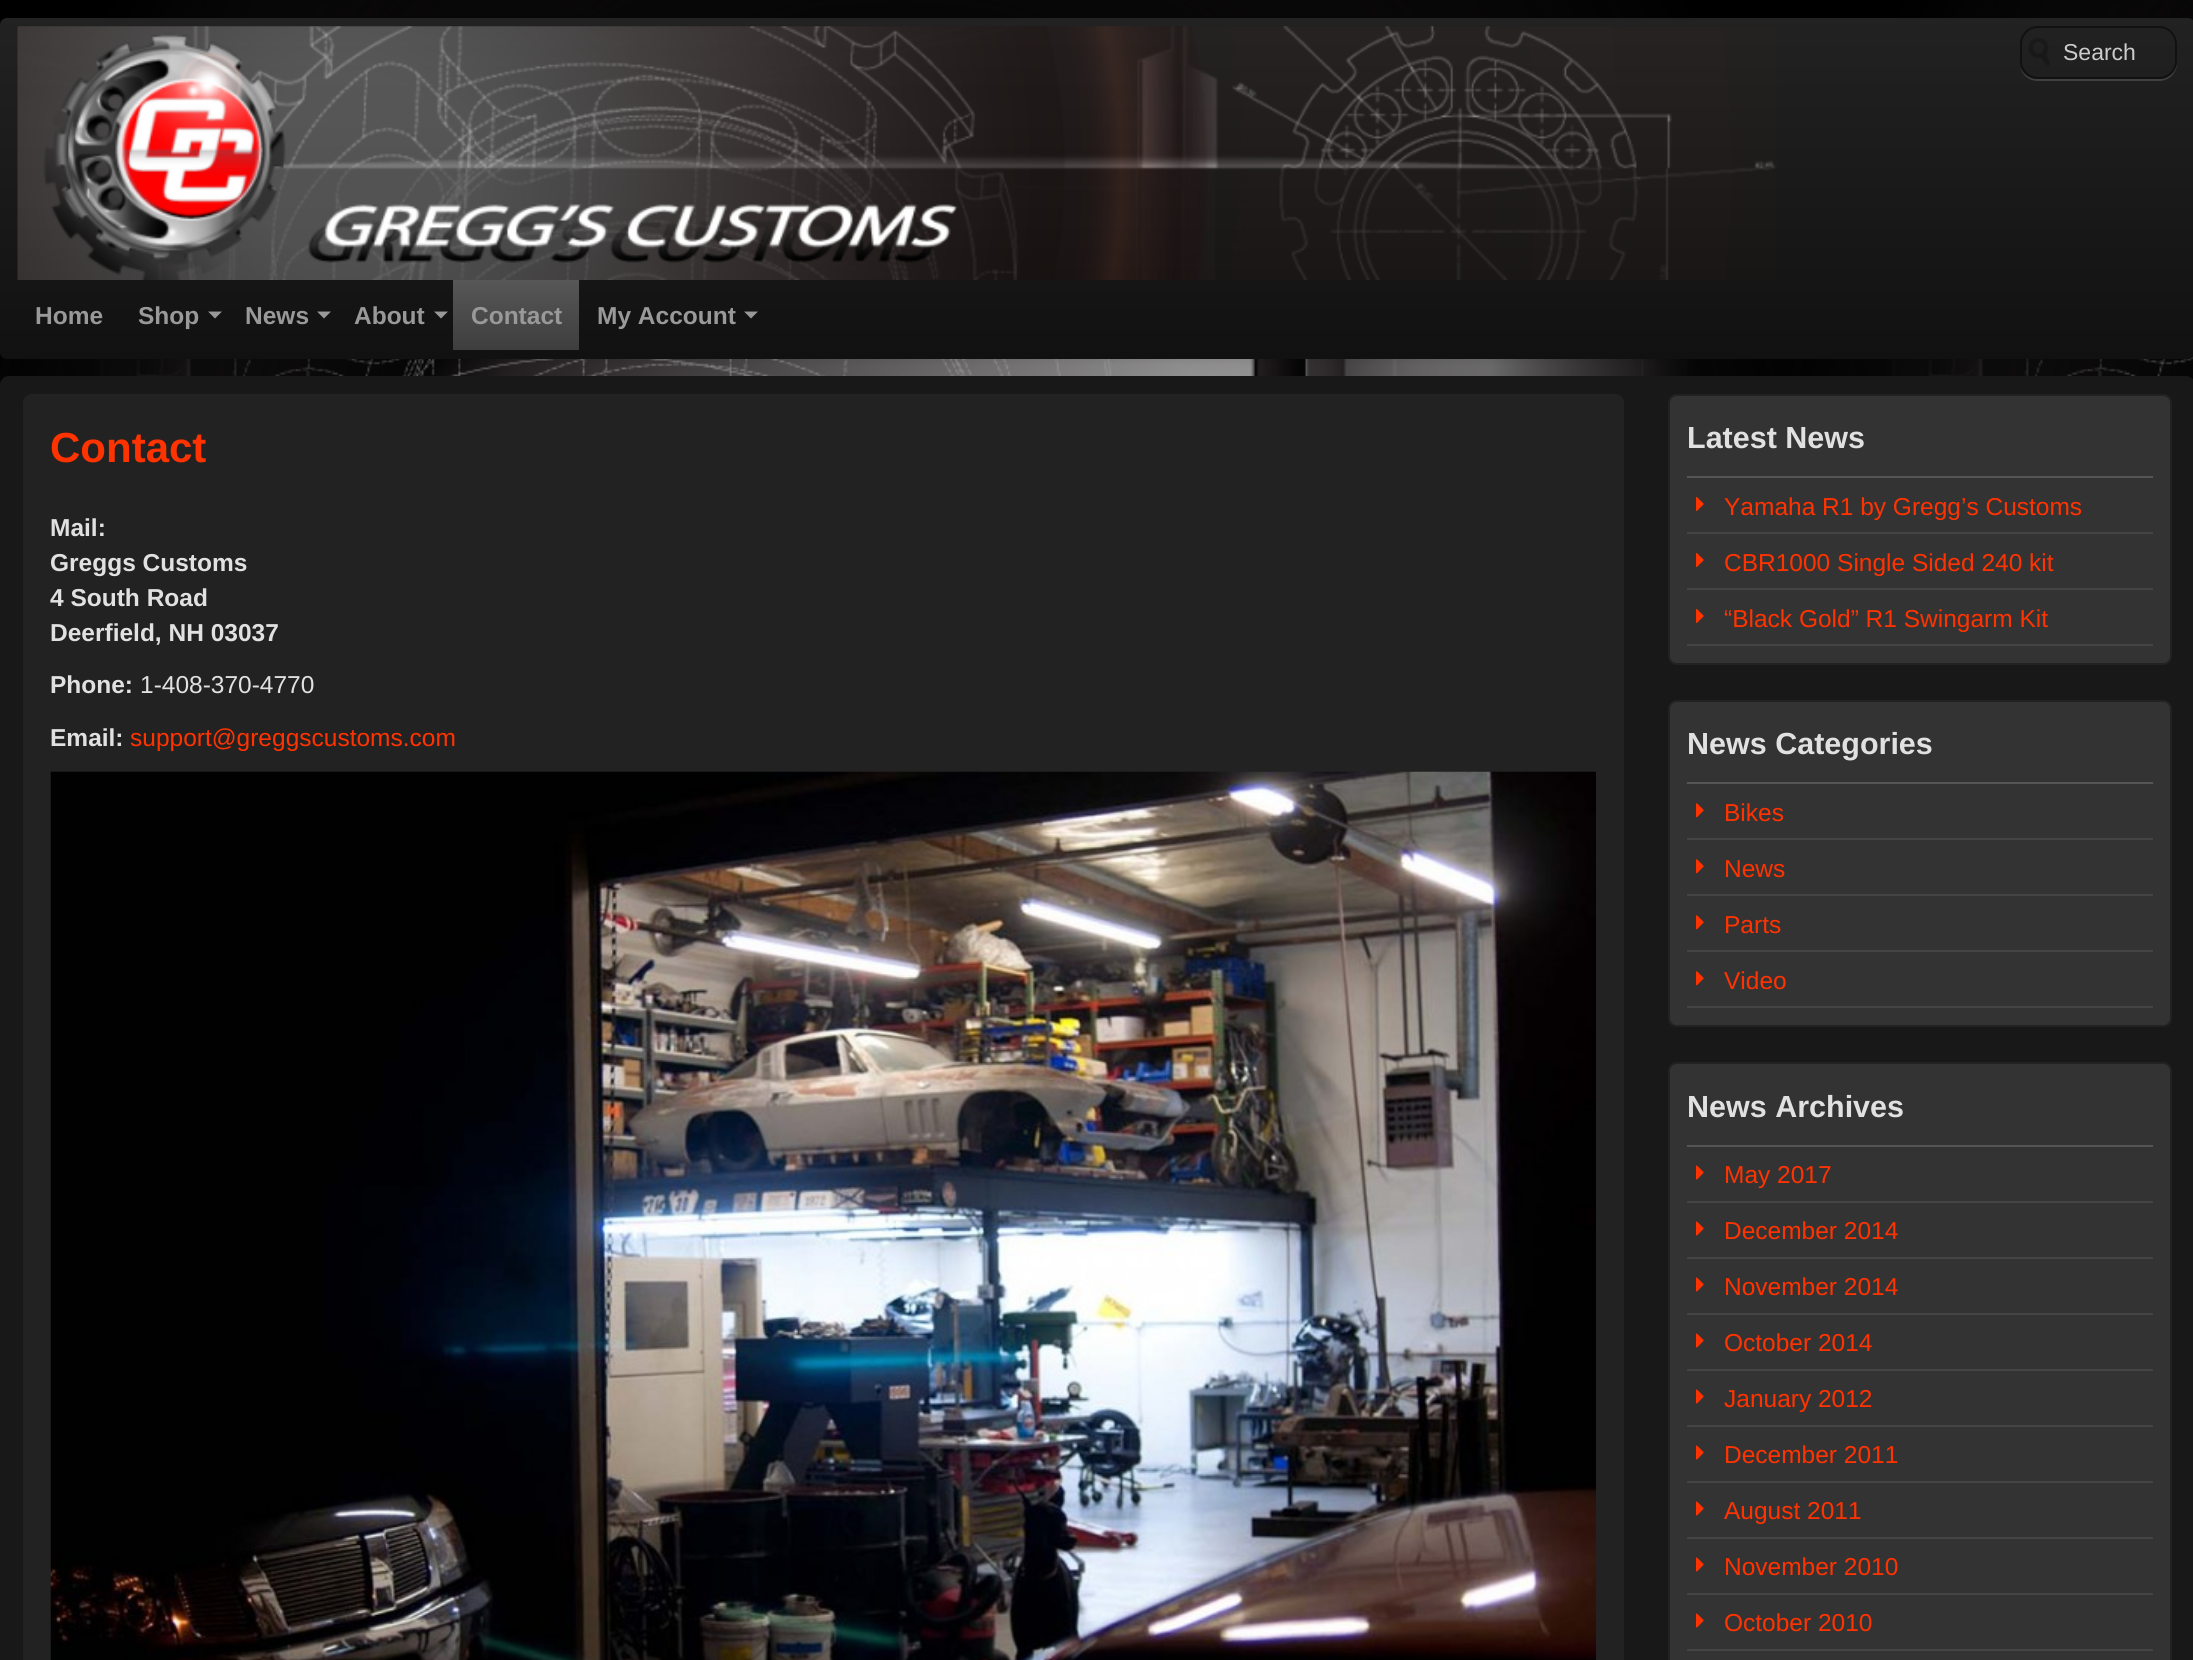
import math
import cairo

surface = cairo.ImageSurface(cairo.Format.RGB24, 2193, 1660)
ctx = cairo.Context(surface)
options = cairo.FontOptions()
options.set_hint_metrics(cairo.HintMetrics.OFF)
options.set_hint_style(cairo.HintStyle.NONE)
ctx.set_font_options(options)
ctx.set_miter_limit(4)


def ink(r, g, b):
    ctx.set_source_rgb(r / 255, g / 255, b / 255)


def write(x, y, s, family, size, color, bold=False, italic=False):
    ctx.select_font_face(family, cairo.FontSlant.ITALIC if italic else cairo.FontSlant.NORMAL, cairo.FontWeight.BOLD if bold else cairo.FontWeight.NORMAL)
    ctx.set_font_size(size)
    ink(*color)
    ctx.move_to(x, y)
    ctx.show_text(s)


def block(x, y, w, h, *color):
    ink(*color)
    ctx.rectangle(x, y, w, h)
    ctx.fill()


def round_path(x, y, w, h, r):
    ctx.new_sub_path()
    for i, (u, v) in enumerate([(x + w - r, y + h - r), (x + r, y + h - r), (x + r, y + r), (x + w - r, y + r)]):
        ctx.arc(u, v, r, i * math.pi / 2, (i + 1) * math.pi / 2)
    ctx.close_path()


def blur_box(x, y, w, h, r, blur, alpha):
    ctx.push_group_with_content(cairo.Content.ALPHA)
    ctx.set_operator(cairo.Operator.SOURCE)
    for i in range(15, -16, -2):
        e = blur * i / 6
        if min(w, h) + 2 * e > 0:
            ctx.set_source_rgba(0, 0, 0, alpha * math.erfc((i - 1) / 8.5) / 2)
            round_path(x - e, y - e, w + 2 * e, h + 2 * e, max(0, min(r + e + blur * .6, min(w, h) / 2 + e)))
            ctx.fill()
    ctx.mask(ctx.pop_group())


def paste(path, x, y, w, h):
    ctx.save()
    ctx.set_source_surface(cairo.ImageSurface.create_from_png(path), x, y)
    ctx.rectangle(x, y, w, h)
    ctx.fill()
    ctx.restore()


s1 = dict(family="Liberation Sans", size=23, color=(204, 204, 204))
s2 = dict(family="Liberation Sans", size=24.5, color=(153, 153, 153), bold=True)
s3 = dict(family="Liberation Sans", size=42, color=(255, 51, 0), bold=True)
s4 = dict(family="Liberation Sans", size=24.5, color=(225, 225, 225), bold=True)
s5 = dict(family="Liberation Sans", size=24.5, color=(225, 225, 225))
s6 = dict(family="Liberation Sans", size=24.5, color=(255, 51, 0))
s7 = dict(family="Liberation Sans", size=30.5, color=(225, 225, 225), bold=True)

ink(255, 255, 255)
ctx.paint()
paste("pic1.png", 0, 0, 2193, 385)
ink(0, 0, 0)
blur_box(0, 19, 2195, 342, 7, 3.5, 0.07)
gradient = cairo.LinearGradient(1097, 17, 1097, 359)
gradient.add_color_stop_rgba(0, 0.133, 0.133, 0.133, 1)
gradient.add_color_stop_rgba(1, 0.067, 0.067, 0.067, 1)
ctx.set_source(gradient)
round_path(0, 18, 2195, 341, 7)
ctx.fill()
paste("pic2.png", 17, 26, 1760, 254)
ink(65, 65, 65)
ctx.new_path()
ctx.move_to(2020, 67)
ctx.curve_to(2022, 75, 2029, 81, 2038, 81)
ctx.line_to(2159, 81)
ctx.curve_to(2169, 81, 2177, 73, 2177, 63)
ctx.line_to(2177, 61)
ctx.curve_to(2177, 71, 2169, 79, 2160, 79)
ctx.line_to(2037, 79)
ctx.curve_to(2029, 79, 2023, 74, 2020, 67)
ctx.close_path()
ctx.fill()
paste("pic3.png", 2028, 38, 22, 28)
round_path(2021, 27, 155, 51, 17)
ink(17, 17, 17)
ctx.stroke()
write(2063, 60, "Search", **s1)
write(35, 324, "Home", **s2)
write(138, 324, "Shop", **s2)
ctx.new_path()
ctx.move_to(208, 311.5)
ctx.line_to(222, 311.5)
ctx.line_to(215, 318.5)
ctx.close_path()
ctx.fill()
write(245, 324, "News", **s2)
ctx.new_path()
ctx.move_to(317, 311.5)
ctx.line_to(331, 311.5)
ctx.line_to(324, 318.5)
ctx.close_path()
ctx.fill()
write(354, 324, "About", **s2)
ctx.new_path()
ctx.move_to(434, 311.5)
ctx.line_to(448, 311.5)
ctx.line_to(441, 318.5)
ctx.close_path()
ctx.fill()
gradient = cairo.LinearGradient(516, 280, 516, 350)
gradient.add_color_stop_rgba(0, 0.341, 0.341, 0.341, 1)
gradient.add_color_stop_rgba(1, 0.243, 0.243, 0.243, 1)
ctx.set_source(gradient)
ctx.rectangle(453, 280, 126, 70)
ctx.fill()
write(471, 324, "Contact", **s2)
write(597, 324, "My Account", **s2)
ctx.new_path()
ctx.move_to(744, 311.5)
ctx.line_to(758, 311.5)
ctx.line_to(751, 318.5)
ctx.close_path()
ctx.fill()
ink(24, 24, 24)
round_path(0, 376, 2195, 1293, 9)
ctx.fill()
ink(34, 34, 34)
round_path(23, 394, 1601, 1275, 9)
ctx.fill()
write(50, 462, "Contact", **s3)
write(50, 536, "Mail:", **s4)
write(50, 571, "Greggs Customs", **s4)
write(50, 606, "4 South Road", **s4)
write(50, 641, "Deerfield, NH 03037", **s4)
write(50, 693, "Phone:", **s4)
write(140, 693, "1-408-370-4770", **s5)
write(50, 746, "Email:", **s4)
write(130, 746, "support@greggscustoms.com", **s6)
paste("pic4.png", 50, 771, 1546, 889)
ink(51, 51, 51)
round_path(1669, 395, 502, 269, 8)
ctx.fill_preserve()
ink(34, 34, 34)
ctx.stroke()
block(1687, 476, 466, 2, 85, 85, 85)
write(1687, 448, "Latest News", **s7)
block(1687, 532, 466, 2, 68, 68, 68)
paste("pic5.png", 1696, 497, 8, 14)
write(1724, 515, "Yamaha R1 by Gregg’s Customs", **s6)
block(1687, 588, 466, 2, 68, 68, 68)
paste("pic5.png", 1696, 553, 8, 14)
write(1724, 571, "CBR1000 Single Sided 240 kit", **s6)
block(1687, 644, 466, 2, 68, 68, 68)
paste("pic5.png", 1696, 609, 8, 14)
write(1724, 627, "“Black Gold” R1 Swingarm Kit", **s6)
ink(51, 51, 51)
round_path(1669, 701, 502, 325, 8)
ctx.fill_preserve()
ink(34, 34, 34)
ctx.stroke()
block(1687, 782, 466, 2, 85, 85, 85)
write(1687, 754, "News Categories", **s7)
block(1687, 838, 466, 2, 68, 68, 68)
paste("pic6.png", 1696, 803, 8, 15)
write(1724, 821, "Bikes", **s6)
block(1687, 894, 466, 2, 68, 68, 68)
paste("pic6.png", 1696, 859, 8, 15)
write(1724, 877, "News", **s6)
block(1687, 950, 466, 2, 68, 68, 68)
paste("pic6.png", 1696, 915, 8, 15)
write(1724, 933, "Parts", **s6)
block(1687, 1006, 466, 2, 68, 68, 68)
paste("pic6.png", 1696, 971, 8, 15)
write(1724, 989, "Video", **s6)
ink(51, 51, 51)
round_path(1669, 1063, 502, 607, 8)
ctx.fill_preserve()
ink(34, 34, 34)
ctx.stroke()
block(1687, 1145, 466, 2, 85, 85, 85)
write(1687, 1117, "News Archives", **s7)
block(1687, 1201, 466, 2, 68, 68, 68)
paste("pic7.png", 1696, 1165, 8, 15)
write(1724, 1183, "May 2017", **s6)
block(1687, 1257, 466, 2, 68, 68, 68)
paste("pic7.png", 1696, 1221, 8, 15)
write(1724, 1239, "December 2014", **s6)
block(1687, 1313, 466, 2, 68, 68, 68)
paste("pic7.png", 1696, 1277, 8, 15)
write(1724, 1295, "November 2014", **s6)
block(1687, 1369, 466, 2, 68, 68, 68)
paste("pic7.png", 1696, 1333, 8, 15)
write(1724, 1351, "October 2014", **s6)
block(1687, 1425, 466, 2, 68, 68, 68)
paste("pic7.png", 1696, 1389, 8, 15)
write(1724, 1407, "January 2012", **s6)
block(1687, 1481, 466, 2, 68, 68, 68)
paste("pic7.png", 1696, 1445, 8, 15)
write(1724, 1463, "December 2011", **s6)
block(1687, 1537, 466, 2, 68, 68, 68)
paste("pic7.png", 1696, 1501, 8, 15)
write(1724, 1519, "August 2011", **s6)
block(1687, 1593, 466, 2, 68, 68, 68)
paste("pic7.png", 1696, 1557, 8, 15)
write(1724, 1575, "November 2010", **s6)
block(1687, 1649, 466, 2, 68, 68, 68)
paste("pic7.png", 1696, 1613, 8, 15)
write(1724, 1631, "October 2010", **s6)
surface.write_to_png("screenshot.png")
